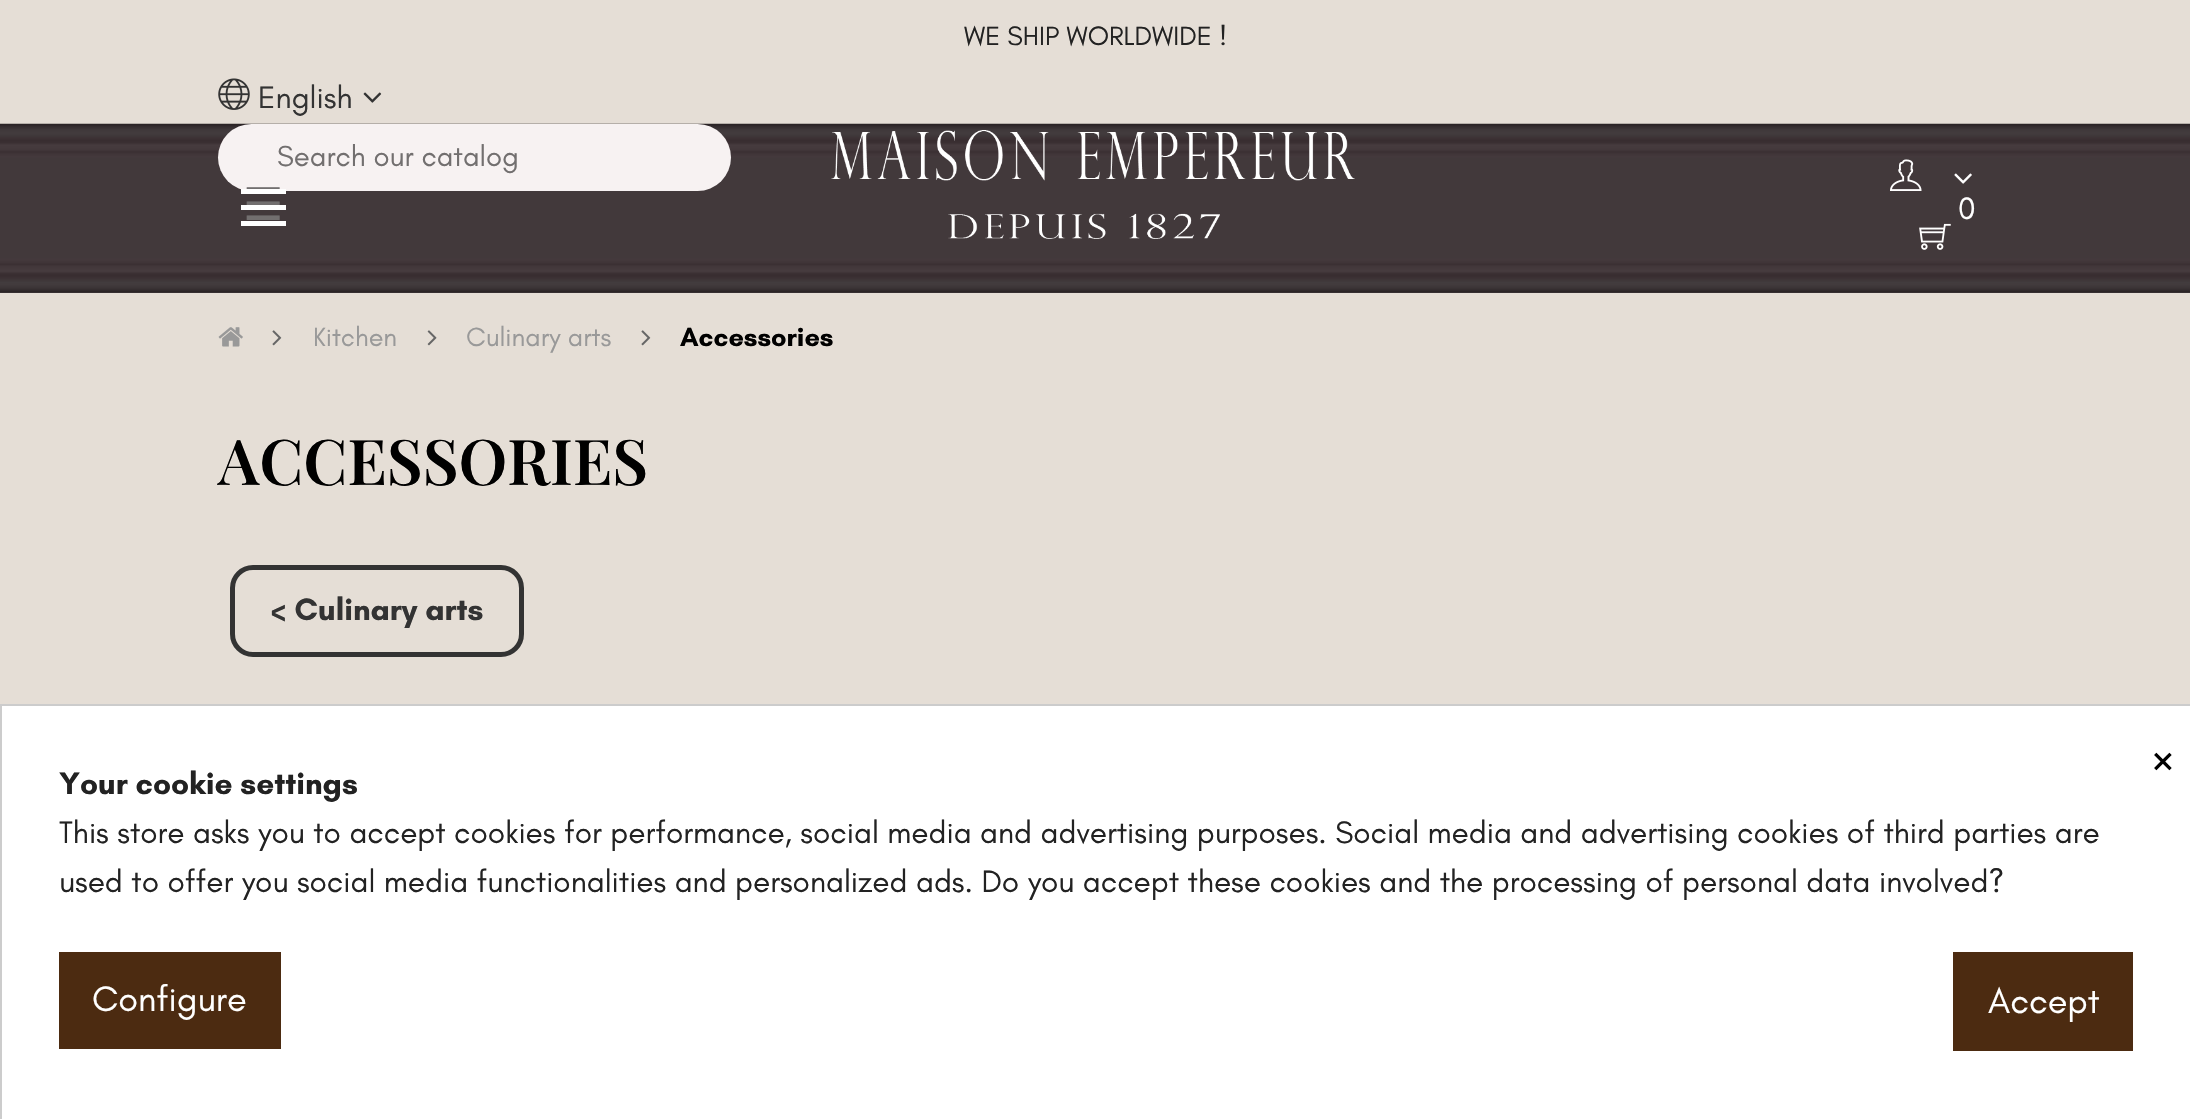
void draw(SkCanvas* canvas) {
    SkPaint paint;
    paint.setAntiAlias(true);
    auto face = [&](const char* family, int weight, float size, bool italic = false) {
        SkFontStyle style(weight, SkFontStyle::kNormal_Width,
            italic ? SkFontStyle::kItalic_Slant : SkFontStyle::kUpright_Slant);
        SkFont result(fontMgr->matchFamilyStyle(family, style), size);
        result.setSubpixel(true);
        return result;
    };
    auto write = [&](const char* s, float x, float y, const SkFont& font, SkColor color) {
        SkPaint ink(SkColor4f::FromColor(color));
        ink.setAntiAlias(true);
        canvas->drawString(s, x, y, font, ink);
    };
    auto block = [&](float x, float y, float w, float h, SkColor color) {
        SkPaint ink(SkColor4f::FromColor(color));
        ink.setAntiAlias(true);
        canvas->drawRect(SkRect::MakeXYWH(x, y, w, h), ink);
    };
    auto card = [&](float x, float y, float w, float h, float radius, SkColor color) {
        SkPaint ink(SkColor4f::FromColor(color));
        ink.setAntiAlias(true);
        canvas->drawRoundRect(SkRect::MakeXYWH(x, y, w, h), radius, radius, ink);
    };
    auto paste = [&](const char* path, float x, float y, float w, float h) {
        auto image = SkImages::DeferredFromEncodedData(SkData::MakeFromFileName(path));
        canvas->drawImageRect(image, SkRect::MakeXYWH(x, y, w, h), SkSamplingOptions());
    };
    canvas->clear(SkColorSetRGB(229, 222, 214));
    auto kFont1 = face("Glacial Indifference", 400, 27);
    write("WE SHIP WORLDWIDE !", 964, 45, kFont1, SkColorSetRGB(34, 34, 34));
    paste("pic1.png", 218, 78, 32, 32);
    auto kFont2 = face("Glacial Indifference", 400, 31.5f);
    write("English", 258, 108, kFont2, SkColorSetRGB(51, 51, 51));
    paste("pic2.png", 363, 92, 19, 11);
    block(0, 157, 2190, 136, SkColorSetRGB(66, 57, 59));
    paste("pic3.png", 0, 123, 2190, 170);
    card(218, 124, 513, 67, 33.5f, SkColorSetRGB(247, 242, 242));
    auto kFont3 = face("DejaVu Sans", 400, 45);
    write("☰", 243, 220, kFont3, SkColorSetRGB(114, 111, 111));
    block(241, 189, 45, 5, SK_ColorWHITE);
    block(241, 221, 45, 5, SK_ColorWHITE);
    block(241, 205, 45, 5, SK_ColorWHITE);
    auto kFont4 = face("Glacial Indifference", 400, 29.25f);
    write("Search our catalog", 277, 166, kFont4, SkColorSetRGB(114, 111, 111));
    paste("pic4.png", 831, 130, 524, 109);
    paste("pic5.png", 1890, 159, 32, 32);
    paste("pic6.png", 1954, 173, 18, 11);
    write("0", 1958, 219, kFont2, SK_ColorWHITE);
    paste("pic7.png", 1919, 223, 32, 27);
    paste("pic8.png", 218, 327, 25, 20);
    paste("pic9.png", 272, 330, 10, 16);
    write("Kitchen", 313, 346, kFont1, SkColorSetRGB(153, 153, 153));
    paste("pic10.png", 427, 330, 10, 16);
    write("Culinary arts", 466, 346, kFont1, SkColorSetRGB(153, 153, 153));
    paste("pic9.png", 641, 330, 10, 16);
    auto kFont5 = face("Glacial Indifference", 700, 27);
    write("Accessories", 680, 346, kFont5, SK_ColorBLACK);
    auto kFont6 = face("Playfair Display", 600, 63);
    write("ACCESSORIES", 218, 485, kFont6, SK_ColorBLACK);
    paint.setStyle(SkPaint::kStroke_Style);
    paint.setStrokeWidth(5);
    paint.setColor(SkColorSetRGB(51, 51, 51));
    canvas->drawRoundRect(SkRect::MakeXYWH(232.5f, 567.5f, 289, 87), 20.5f, 20.5f, paint);
    auto kFont7 = face("Glacial Indifference", 700, 31.5f);
    write("< Culinary arts", 270, 620, kFont7, SkColorSetRGB(51, 51, 51));
    paint.setStyle(SkPaint::kFill_Style);
    paint.setColor(SK_ColorWHITE);
    canvas->drawRect(SkRect::MakeXYWH(1, 705, 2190, 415), paint);
    paint.setStyle(SkPaint::kStroke_Style);
    paint.setStrokeWidth(2);
    paint.setColor(SkColorSetRGB(204, 204, 204));
    canvas->drawRect(SkRect::MakeXYWH(1, 705, 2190, 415), paint);
    auto kFont8 = face("Glacial Indifference", 400, 56);
    write("×", 2150, 774, kFont8, SK_ColorBLACK);
    write("Your cookie settings", 59, 794, kFont7, SkColorSetRGB(34, 34, 34));
    write("This store asks you to accept cookies for performance, social media and advertising purposes. Social media and advertising cookies of third parties are", 59, 843, kFont2, SkColorSetRGB(34, 34, 34));
    write("used to offer you social media functionalities and personalized ads. Do you accept these cookies and the processing of personal data involved?", 59, 892, kFont2, SkColorSetRGB(34, 34, 34));
    block(59, 952, 222, 97, SkColorSetRGB(76, 43, 17));
    auto kFont9 = face("Glacial Indifference", 400, 36);
    write("Configure", 92, 1011, kFont9, SK_ColorWHITE);
    block(1953, 952, 180, 99, SkColorSetRGB(76, 43, 17));
    write("Accept", 1988, 1013, kFont9, SK_ColorWHITE);
}
